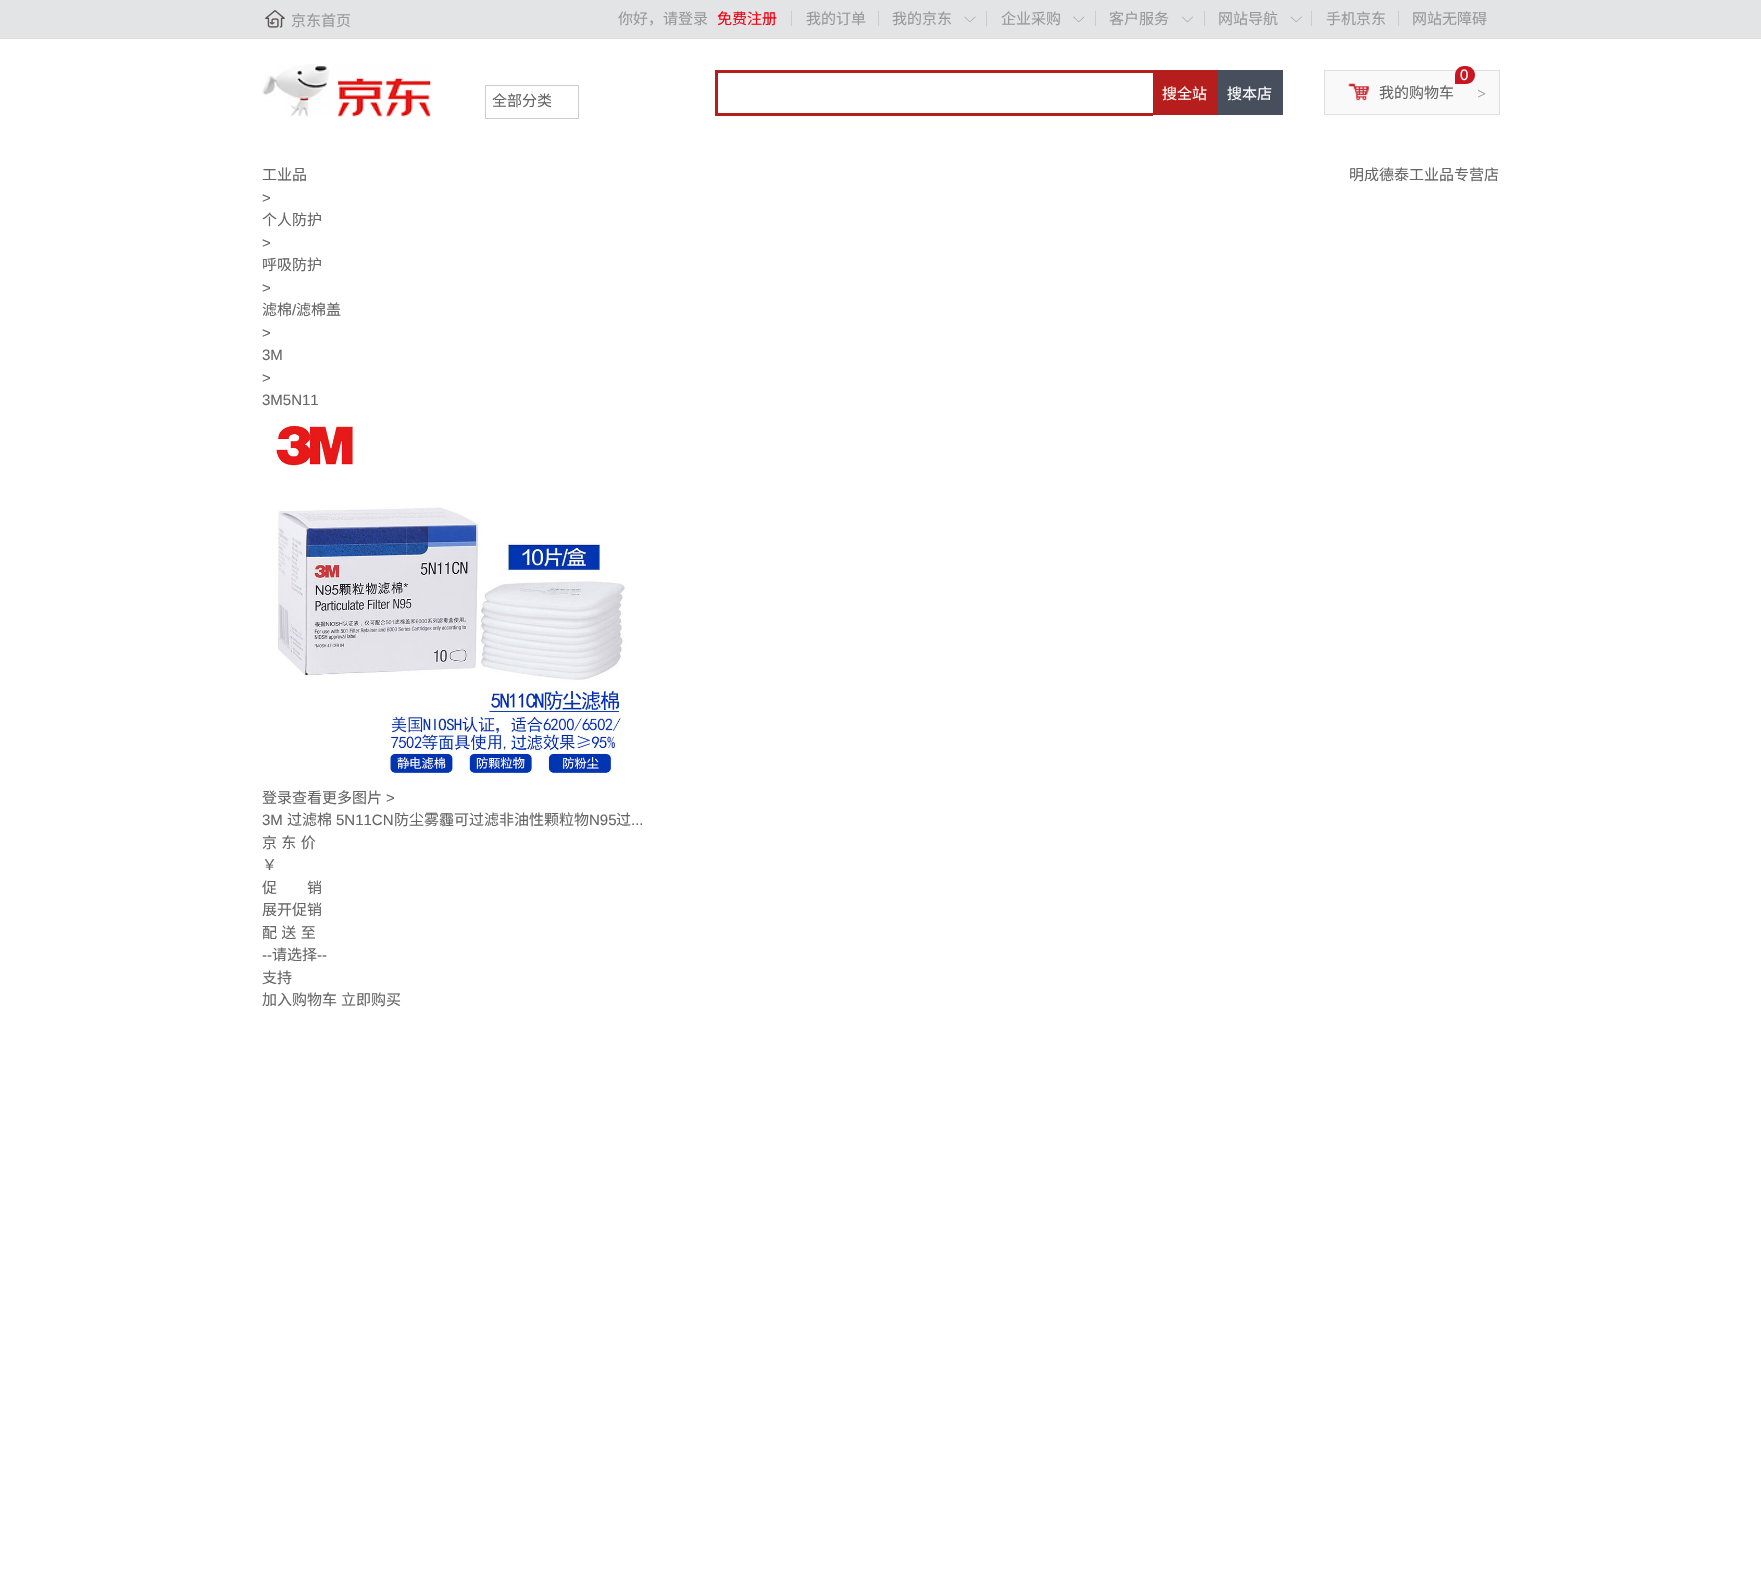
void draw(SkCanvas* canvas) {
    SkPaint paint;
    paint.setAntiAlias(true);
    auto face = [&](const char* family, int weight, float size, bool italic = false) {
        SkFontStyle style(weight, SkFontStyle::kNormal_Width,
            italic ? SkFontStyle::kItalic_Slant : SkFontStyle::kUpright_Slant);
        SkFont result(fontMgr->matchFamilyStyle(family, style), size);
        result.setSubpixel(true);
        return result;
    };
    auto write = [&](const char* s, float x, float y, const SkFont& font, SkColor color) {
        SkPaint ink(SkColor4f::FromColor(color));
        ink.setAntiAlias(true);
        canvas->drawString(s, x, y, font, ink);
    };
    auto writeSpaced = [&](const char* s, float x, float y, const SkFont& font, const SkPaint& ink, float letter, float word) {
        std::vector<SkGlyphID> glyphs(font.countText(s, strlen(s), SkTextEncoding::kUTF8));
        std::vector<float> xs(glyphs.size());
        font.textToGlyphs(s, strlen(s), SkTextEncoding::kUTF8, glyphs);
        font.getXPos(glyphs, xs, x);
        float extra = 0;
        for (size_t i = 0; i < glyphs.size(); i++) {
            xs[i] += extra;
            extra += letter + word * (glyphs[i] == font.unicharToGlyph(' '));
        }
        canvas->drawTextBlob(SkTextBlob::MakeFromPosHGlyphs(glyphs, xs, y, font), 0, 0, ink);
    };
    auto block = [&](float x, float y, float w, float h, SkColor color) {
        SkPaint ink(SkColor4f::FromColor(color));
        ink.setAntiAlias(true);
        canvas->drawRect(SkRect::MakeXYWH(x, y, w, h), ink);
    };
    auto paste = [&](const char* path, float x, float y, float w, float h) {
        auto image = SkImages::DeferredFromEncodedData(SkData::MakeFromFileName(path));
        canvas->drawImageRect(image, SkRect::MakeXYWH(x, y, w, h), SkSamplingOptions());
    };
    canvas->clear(SK_ColorWHITE);
    block(0, 0, 1761, 38, SkColorSetRGB(227, 228, 229));
    block(0, 38, 1761, 1, SkColorSetRGB(221, 221, 221));
    paste("pic1.png", 265, 10, 20, 18);
    auto kFont1 = face("Noto Sans CJK SC", 400, 15);
    write("京东首页", 291, 26, kFont1, SkColorSetRGB(153, 153, 153));
    write("你好，请登录", 618, 24, kFont1, SkColorSetRGB(153, 153, 153));
    write("免费注册", 717, 24, kFont1, SkColorSetRGB(243, 2, 19));
    block(791, 11, 1, 15, SkColorSetRGB(204, 204, 204));
    write("我的订单", 806, 24, kFont1, SkColorSetRGB(153, 153, 153));
    block(878, 11, 1, 15, SkColorSetRGB(204, 204, 204));
    write("我的京东", 892, 24, kFont1, SkColorSetRGB(153, 153, 153));
    paste("pic2.png", 964, 16, 12, 6);
    block(986, 11, 1, 15, SkColorSetRGB(204, 204, 204));
    write("企业采购", 1001, 24, kFont1, SkColorSetRGB(153, 153, 153));
    paste("pic3.png", 1073, 16, 12, 7);
    block(1095, 11, 1, 15, SkColorSetRGB(204, 204, 204));
    write("客户服务", 1109, 24, kFont1, SkColorSetRGB(153, 153, 153));
    paste("pic4.png", 1182, 16, 11, 7);
    block(1204, 11, 1, 15, SkColorSetRGB(204, 204, 204));
    write("网站导航", 1218, 24, kFont1, SkColorSetRGB(153, 153, 153));
    paste("pic5.png", 1290, 16, 12, 7);
    block(1311, 11, 1, 15, SkColorSetRGB(204, 204, 204));
    write("手机京东", 1326, 24, kFont1, SkColorSetRGB(153, 153, 153));
    block(1398, 11, 1, 15, SkColorSetRGB(204, 204, 204));
    write("网站无障碍", 1412, 24, kFont1, SkColorSetRGB(153, 153, 153));
    paste("pic6.png", 262, 64, 170, 53);
    paint.setStyle(SkPaint::kStroke_Style);
    paint.setStrokeWidth(1);
    paint.setColor(SkColorSetRGB(204, 204, 204));
    canvas->drawRect(SkRect::MakeXYWH(485.5f, 85.5f, 93, 33), paint);
    write("全部分类", 492, 106, kFont1, SkColorSetRGB(102, 102, 102));
    block(715, 70, 438, 3, SkColorSetRGB(182, 29, 29));
    block(715, 113, 438, 3, SkColorSetRGB(182, 29, 29));
    block(715, 70, 3, 45, SkColorSetRGB(182, 29, 29));
    block(1153, 70, 65, 45, SkColorSetRGB(182, 29, 29));
    write("搜全站", 1162, 99, kFont1, SK_ColorWHITE);
    block(1218, 70, 65, 45, SkColorSetRGB(71, 78, 92));
    write("搜本店", 1227, 99, kFont1, SK_ColorWHITE);
    paint.setStyle(SkPaint::kFill_Style);
    paint.setColor(SkColorSetRGB(249, 249, 249));
    canvas->drawRect(SkRect::MakeXYWH(1324.5f, 70.5f, 175, 44), paint);
    paint.setStyle(SkPaint::kStroke_Style);
    paint.setColor(SkColorSetRGB(223, 223, 223));
    canvas->drawRect(SkRect::MakeXYWH(1324.5f, 70.5f, 175, 44), paint);
    paint.setStyle(SkPaint::kFill_Style);
    paint.setColor(SkColorSetRGB(200, 22, 35));
    canvas->drawPath(SkPathBuilder().moveTo(1464, 66).lineTo(1466, 66).cubicTo(1471, 66, 1475, 70, 1475, 75).cubicTo(1475, 80, 1471, 84, 1466, 84).lineTo(1455, 84).lineTo(1455, 75).cubicTo(1455, 70, 1459, 66, 1464, 66).close().detach(), paint);
    auto kFont2 = face("Liberation Sans", 400, 15);
    write("0", 1460, 80, kFont2, SK_ColorWHITE);
    paste("pic7.png", 1348, 83, 21, 18);
    write("我的购物车", 1379, 98, kFont1, SkColorSetRGB(102, 102, 102));
    canvas->save();
    canvas->clipRect(SkRect::MakeXYWH(1478, 85, 8, 16));
    auto kFont3 = face("Liberation Serif", 400, 16);
    write(">", 1477, 99, kFont3, SkColorSetRGB(153, 153, 153));
    canvas->restore();
    write("工业品", 262, 180, kFont1, SkColorSetRGB(102, 102, 102));
    write(">", 262, 203, kFont2, SkColorSetRGB(102, 102, 102));
    write("个人防护", 262, 225, kFont1, SkColorSetRGB(102, 102, 102));
    write(">", 262, 248, kFont2, SkColorSetRGB(102, 102, 102));
    write("呼吸防护", 262, 270, kFont1, SkColorSetRGB(102, 102, 102));
    write(">", 262, 293, kFont2, SkColorSetRGB(102, 102, 102));
    write("滤棉", 262, 315, kFont1, SkColorSetRGB(102, 102, 102));
    write("/", 292, 315, kFont2, SkColorSetRGB(102, 102, 102));
    write("滤棉盖", 296, 315, kFont1, SkColorSetRGB(102, 102, 102));
    write(">", 262, 338, kFont2, SkColorSetRGB(102, 102, 102));
    write("3M", 262, 360, kFont2, SkColorSetRGB(102, 102, 102));
    write(">", 262, 383, kFont2, SkColorSetRGB(102, 102, 102));
    write("3M5N11", 262, 405, kFont2, SkColorSetRGB(102, 102, 102));
    write("明成德泰工业品专营店", 1349, 180, kFont1, SkColorSetRGB(102, 102, 102));
    paste("pic8.png", 275, 424, 351, 350);
    write("登录查看更多图片", 262, 803, kFont1, SkColorSetRGB(102, 102, 102));
    write(">", 386, 803, kFont2, SkColorSetRGB(102, 102, 102));
    write("3M", 262, 825, kFont2, SkColorSetRGB(102, 102, 102));
    write("过滤棉", 287, 825, kFont1, SkColorSetRGB(102, 102, 102));
    write("5N11CN", 336, 825, kFont2, SkColorSetRGB(102, 102, 102));
    write("防尘雾霾可过滤非油性颗粒物", 394, 825, kFont1, SkColorSetRGB(102, 102, 102));
    write("N95", 589, 825, kFont2, SkColorSetRGB(102, 102, 102));
    write("过", 616, 825, kFont1, SkColorSetRGB(102, 102, 102));
    write("...", 631, 825, kFont2, SkColorSetRGB(102, 102, 102));
    paint.setColor(SkColorSetRGB(102, 102, 102));
    writeSpaced("京 东 价", 262, 848, kFont1, paint, 0, 1);
    write("￥", 262, 870, kFont1, SkColorSetRGB(102, 102, 102));
    write("促　　销", 262, 893, kFont1, SkColorSetRGB(102, 102, 102));
    write("展开促销", 262, 915, kFont1, SkColorSetRGB(102, 102, 102));
    writeSpaced("配 送 至", 262, 938, kFont1, paint, 0, 1);
    write("--", 262, 960, kFont2, SkColorSetRGB(102, 102, 102));
    write("请选择", 272, 960, kFont1, SkColorSetRGB(102, 102, 102));
    write("--", 317, 960, kFont2, SkColorSetRGB(102, 102, 102));
    write("支持", 262, 983, kFont1, SkColorSetRGB(102, 102, 102));
    write("加入购物车", 262, 1005, kFont1, SkColorSetRGB(102, 102, 102));
    write("立即购买", 341, 1005, kFont1, SkColorSetRGB(102, 102, 102));
}
